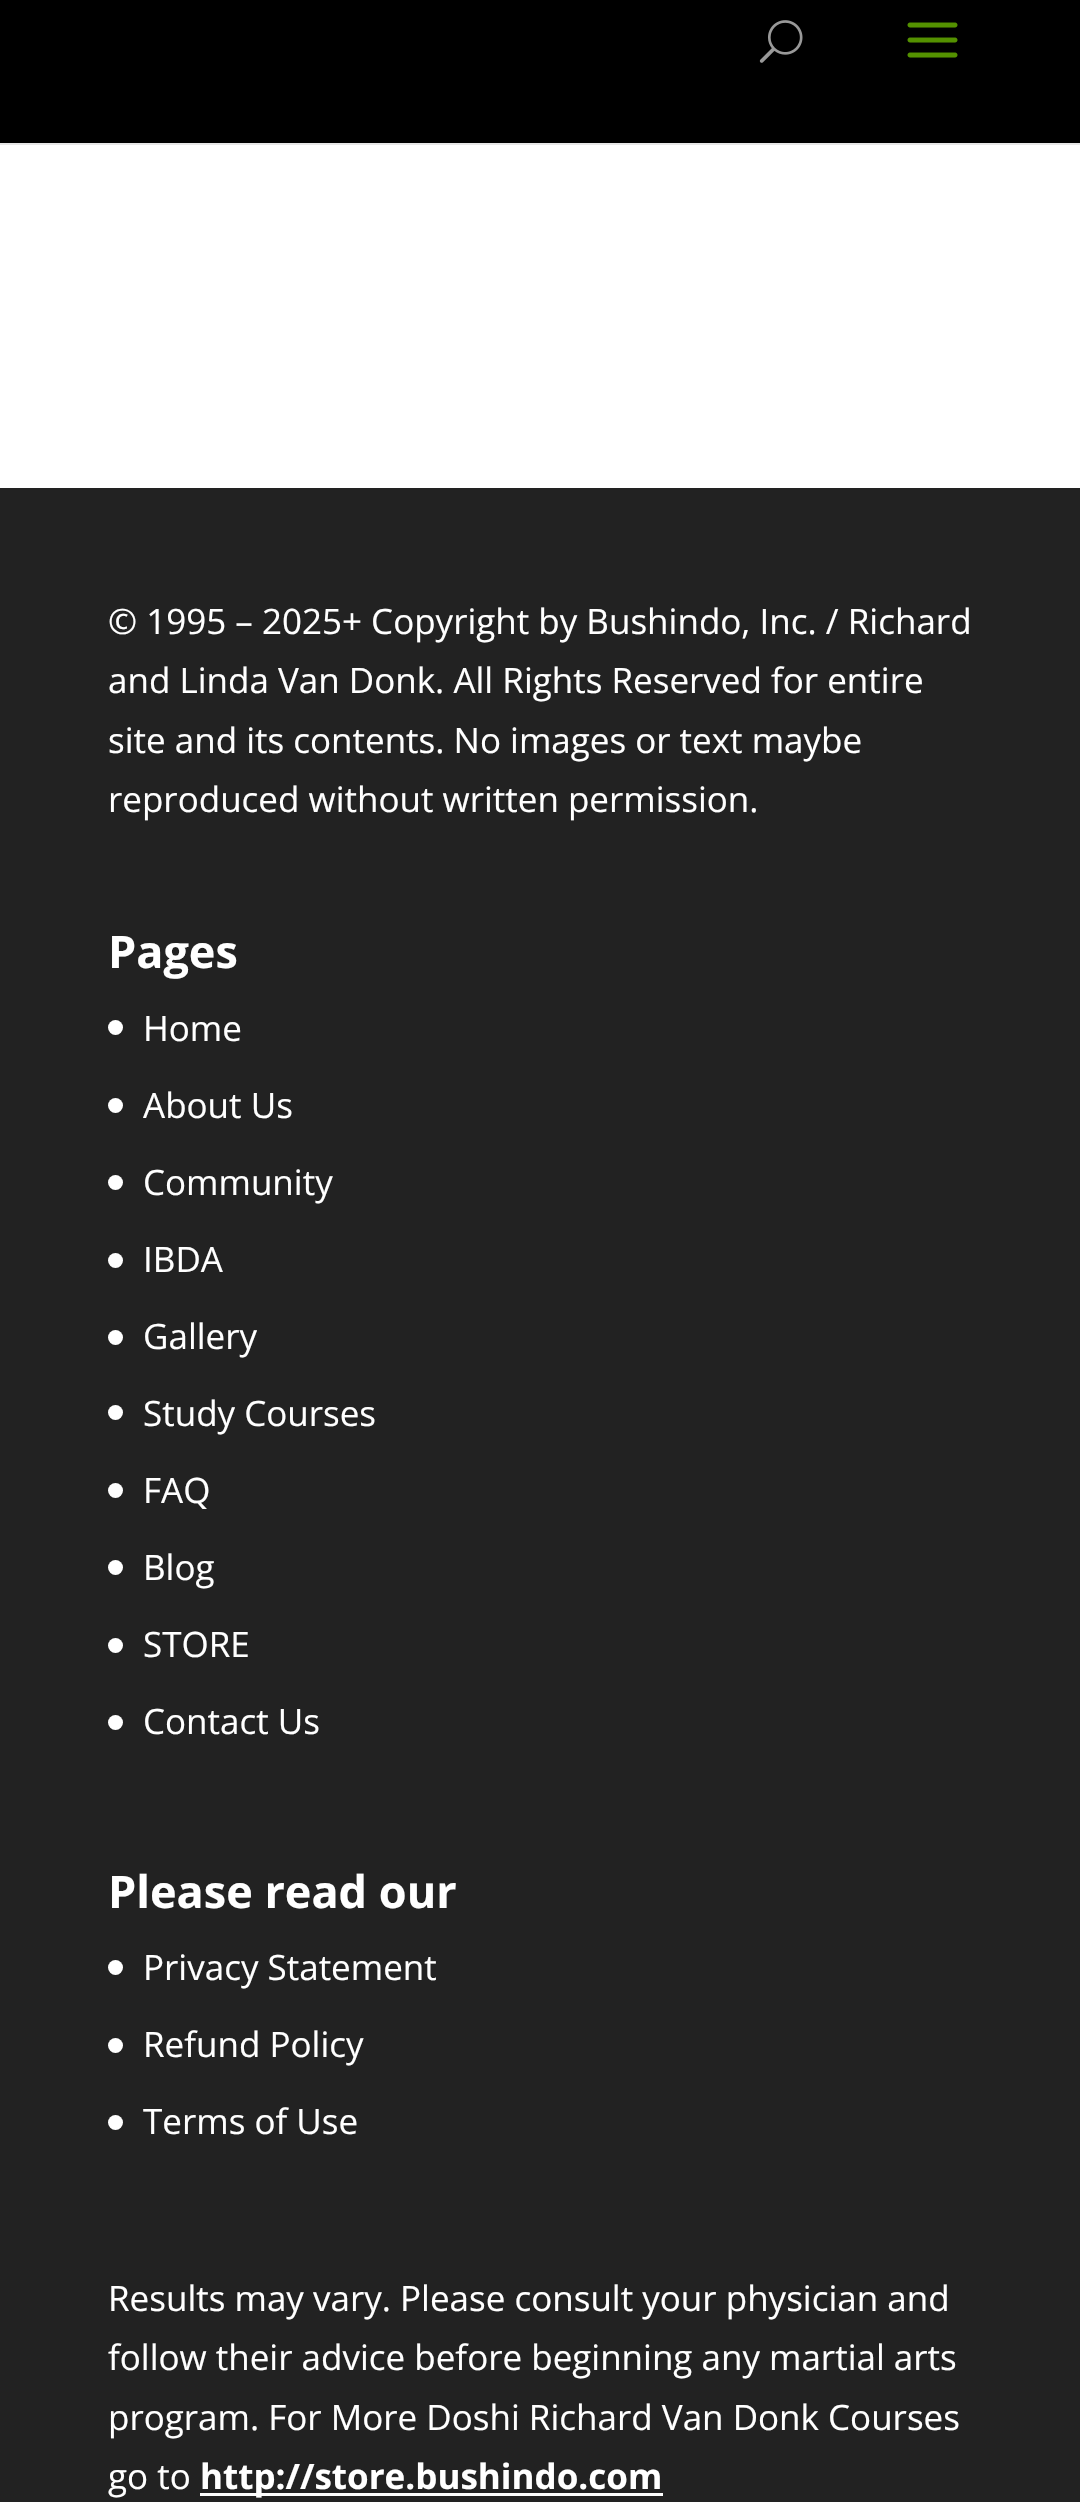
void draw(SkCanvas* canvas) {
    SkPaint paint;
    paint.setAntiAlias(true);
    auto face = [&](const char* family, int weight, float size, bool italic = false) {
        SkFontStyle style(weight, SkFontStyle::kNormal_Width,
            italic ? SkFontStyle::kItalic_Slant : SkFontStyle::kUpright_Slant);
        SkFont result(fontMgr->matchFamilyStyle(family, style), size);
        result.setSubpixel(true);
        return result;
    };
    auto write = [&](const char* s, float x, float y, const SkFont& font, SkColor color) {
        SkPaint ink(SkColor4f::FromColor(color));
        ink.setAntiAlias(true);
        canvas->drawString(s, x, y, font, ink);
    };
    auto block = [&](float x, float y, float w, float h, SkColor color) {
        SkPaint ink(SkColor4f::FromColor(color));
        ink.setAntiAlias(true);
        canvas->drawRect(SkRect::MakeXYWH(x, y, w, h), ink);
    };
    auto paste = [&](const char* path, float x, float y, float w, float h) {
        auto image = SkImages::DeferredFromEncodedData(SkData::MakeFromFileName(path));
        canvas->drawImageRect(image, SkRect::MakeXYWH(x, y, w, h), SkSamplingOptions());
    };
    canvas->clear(SK_ColorWHITE);
    block(0, 143, 1080, 2, SkColorSetRGB(230, 230, 230));
    block(0, 0, 1080, 143, SK_ColorBLACK);
    paste("pic1.png", 759, 20, 44, 43);
    paste("pic2.png", 907, 22, 51, 36);
    block(0, 488, 1080, 2014, SkColorSetRGB(34, 34, 34));
    auto kFont1 = face("Open Sans", 400, 35);
    write("© 1995 – 2025+ Copyright by Bushindo, Inc. / Richard", 108, 634, kFont1, SK_ColorWHITE);
    write("and Linda Van Donk. All Rights Reserved for entire", 108, 693, kFont1, SK_ColorWHITE);
    write("site and its contents. No images or text maybe", 108, 753, kFont1, SK_ColorWHITE);
    write("reproduced without written permission.", 108, 812, kFont1, SK_ColorWHITE);
    auto kFont2 = face("Open Sans", 700, 45);
    write("Pages", 108, 968, kFont2, SK_ColorWHITE);
    paint.setColor(SK_ColorWHITE);
    canvas->drawCircle(115.5f, 1027.5f, 7.5f, paint);
    write("Home", 143, 1041, kFont1, SK_ColorWHITE);
    canvas->drawCircle(115.5f, 1105.5f, 7.5f, paint);
    write("About Us", 143, 1118, kFont1, SK_ColorWHITE);
    canvas->drawCircle(115.5f, 1182.5f, 7.5f, paint);
    write("Community", 143, 1195, kFont1, SK_ColorWHITE);
    canvas->drawCircle(115.5f, 1260.5f, 7.5f, paint);
    write("IBDA", 143, 1272, kFont1, SK_ColorWHITE);
    canvas->drawCircle(115.5f, 1337.5f, 7.5f, paint);
    write("Gallery", 143, 1349, kFont1, SK_ColorWHITE);
    canvas->drawCircle(115.5f, 1412.5f, 7.5f, paint);
    write("Study Courses", 143, 1426, kFont1, SK_ColorWHITE);
    canvas->drawCircle(115.5f, 1490.5f, 7.5f, paint);
    write("FAQ", 143, 1503, kFont1, SK_ColorWHITE);
    canvas->drawCircle(115.5f, 1567.5f, 7.5f, paint);
    write("Blog", 143, 1580, kFont1, SK_ColorWHITE);
    canvas->drawCircle(115.5f, 1645.5f, 7.5f, paint);
    write("STORE", 143, 1657, kFont1, SK_ColorWHITE);
    canvas->drawCircle(115.5f, 1722.5f, 7.5f, paint);
    write("Contact Us", 143, 1734, kFont1, SK_ColorWHITE);
    write("Please read our", 108, 1908, kFont2, SK_ColorWHITE);
    canvas->drawCircle(115.5f, 1967.5f, 7.5f, paint);
    write("Privacy Statement", 143, 1980, kFont1, SK_ColorWHITE);
    canvas->drawCircle(115.5f, 2045.5f, 7.5f, paint);
    write("Refund Policy", 143, 2057, kFont1, SK_ColorWHITE);
    canvas->drawCircle(115.5f, 2122.5f, 7.5f, paint);
    write("Terms of Use", 143, 2134, kFont1, SK_ColorWHITE);
    write("Results may vary. Please consult your physician and", 108, 2311, kFont1, SK_ColorWHITE);
    write("follow their advice before beginning any martial arts", 108, 2370, kFont1, SK_ColorWHITE);
    write("program. For More Doshi Richard Van Donk Courses", 108, 2430, kFont1, SK_ColorWHITE);
    write("go to", 108, 2489, kFont1, SK_ColorWHITE);
    block(200, 2493, 463, 3, SK_ColorWHITE);
    auto kFont3 = face("Open Sans", 700, 35);
    write("http://store.bushindo.com", 200, 2489, kFont3, SK_ColorWHITE);
}
